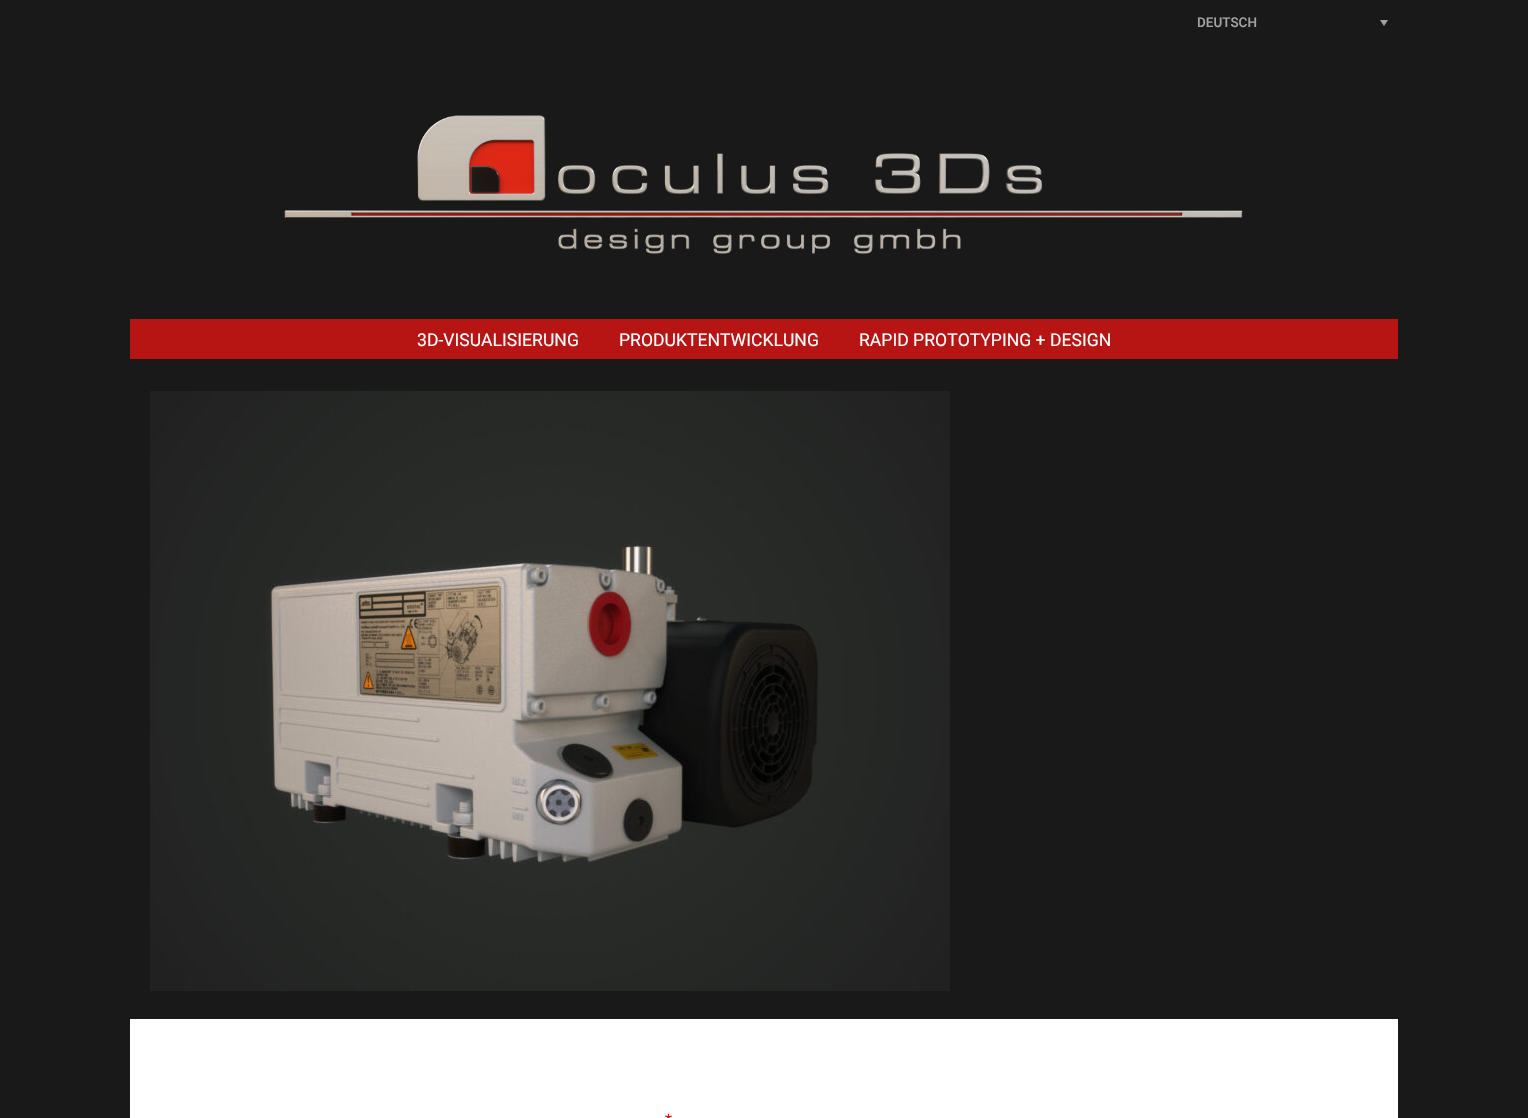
void draw(SkCanvas* canvas) {
    SkPaint paint;
    paint.setAntiAlias(true);
    auto face = [&](const char* family, int weight, float size, bool italic = false) {
        SkFontStyle style(weight, SkFontStyle::kNormal_Width,
            italic ? SkFontStyle::kItalic_Slant : SkFontStyle::kUpright_Slant);
        SkFont result(fontMgr->matchFamilyStyle(family, style), size);
        result.setSubpixel(true);
        return result;
    };
    auto write = [&](const char* s, float x, float y, const SkFont& font, SkColor color) {
        SkPaint ink(SkColor4f::FromColor(color));
        ink.setAntiAlias(true);
        canvas->drawString(s, x, y, font, ink);
    };
    auto block = [&](float x, float y, float w, float h, SkColor color) {
        SkPaint ink(SkColor4f::FromColor(color));
        ink.setAntiAlias(true);
        canvas->drawRect(SkRect::MakeXYWH(x, y, w, h), ink);
    };
    auto paste = [&](const char* path, float x, float y, float w, float h) {
        auto image = SkImages::DeferredFromEncodedData(SkData::MakeFromFileName(path));
        canvas->drawImageRect(image, SkRect::MakeXYWH(x, y, w, h), SkSamplingOptions());
    };
    canvas->clear(SkColorSetRGB(25, 25, 25));
    auto kFont1 = face("Roboto", 500, 13.5f);
    write("DEUTSCH", 1197, 27, kFont1, SkColorSetRGB(163, 163, 163));
    paint.setColor(SkColorSetRGB(163, 163, 163));
    canvas->drawPath(SkPathBuilder().moveTo(1380, 20).lineTo(1388, 20).lineTo(1384, 26).close().detach(), paint);
    paste("pic1.png", 284, 115, 959, 139);
    block(130, 319, 1268, 40, SkColorSetRGB(183, 20, 20));
    auto kFont2 = face("Roboto", 400, 17.6f);
    write("3D-VISUALISIERUNG", 417, 346, kFont2, SK_ColorWHITE);
    write("PRODUKTENTWICKLUNG", 619, 346, kFont2, SK_ColorWHITE);
    write("RAPID PROTOTYPING + DESIGN", 859, 346, kFont2, SK_ColorWHITE);
    paste("pic2.png", 150, 391, 800, 600);
    block(130, 1019, 1268, 99, SK_ColorWHITE);
    auto kFont3 = face("Roboto", 400, 16);
    write("*", 665, 1125, kFont3, SkColorSetRGB(255, 0, 0));
}
